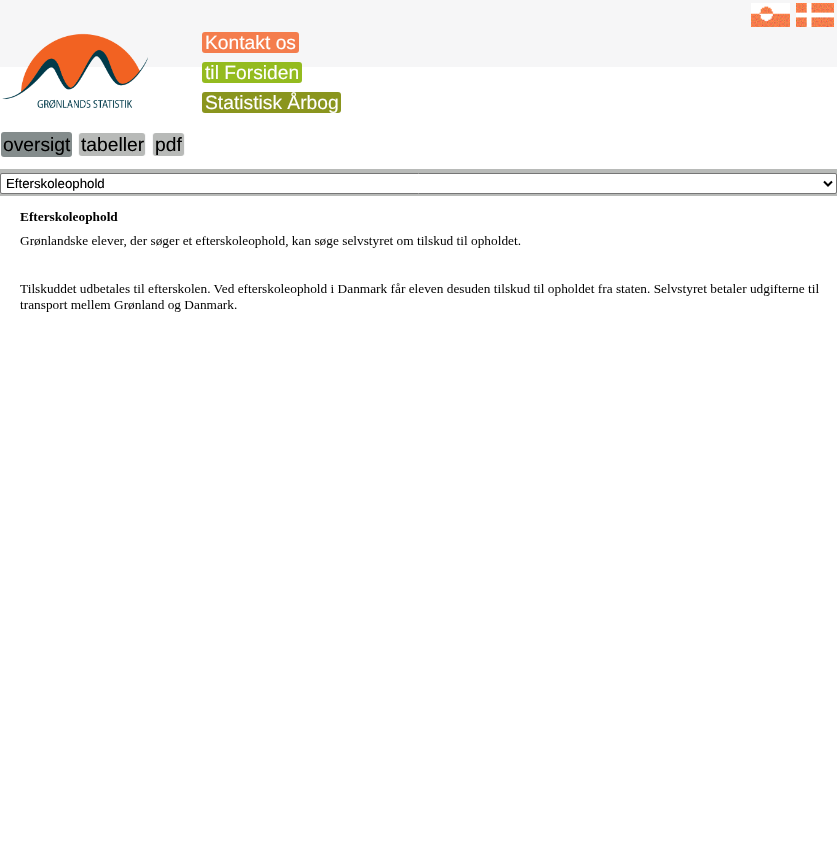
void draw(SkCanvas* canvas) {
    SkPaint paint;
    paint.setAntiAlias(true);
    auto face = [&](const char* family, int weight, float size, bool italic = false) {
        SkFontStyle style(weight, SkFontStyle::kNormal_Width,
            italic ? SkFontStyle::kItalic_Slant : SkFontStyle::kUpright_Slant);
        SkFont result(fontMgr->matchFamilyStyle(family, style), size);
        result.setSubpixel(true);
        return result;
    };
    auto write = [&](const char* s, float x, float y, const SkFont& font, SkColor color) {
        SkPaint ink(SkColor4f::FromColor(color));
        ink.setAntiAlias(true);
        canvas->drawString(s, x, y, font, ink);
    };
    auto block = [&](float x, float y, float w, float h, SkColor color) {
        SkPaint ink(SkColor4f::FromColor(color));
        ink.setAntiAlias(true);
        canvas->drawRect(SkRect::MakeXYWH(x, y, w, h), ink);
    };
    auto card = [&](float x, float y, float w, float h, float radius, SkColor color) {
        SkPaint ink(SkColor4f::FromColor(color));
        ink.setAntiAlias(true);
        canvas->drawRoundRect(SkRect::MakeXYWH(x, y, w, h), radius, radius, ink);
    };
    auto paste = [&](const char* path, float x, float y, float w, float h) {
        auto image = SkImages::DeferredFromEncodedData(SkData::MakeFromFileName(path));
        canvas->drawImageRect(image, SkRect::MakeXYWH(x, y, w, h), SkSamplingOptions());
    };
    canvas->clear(SK_ColorWHITE);
    block(0, 0, 837, 67, SkColorSetRGB(246, 246, 247));
    paste("pic1.png", 751, 3, 39, 24);
    paste("pic2.png", 796, 3, 38, 24);
    paste("pic3.png", 2, 33, 146, 76);
    card(202, 32, 97, 21, 3, SkColorSetRGB(244, 125, 77));
    auto kFont1 = face("Liberation Sans", 400, 19.25f);
    write("Kontakt os", 205, 49, kFont1, SK_ColorWHITE);
    card(202, 62, 100, 21, 3, SkColorSetRGB(148, 187, 31));
    write("til Forsiden", 205, 79, kFont1, SK_ColorWHITE);
    card(202, 92, 139, 21, 3, SkColorSetRGB(138, 149, 30));
    write("Statistisk Årbog", 205, 109, kFont1, SK_ColorWHITE);
    card(1, 132, 71, 25, 3, SkColorSetRGB(132, 140, 140));
    write("oversigt", 3, 151, kFont1, SK_ColorBLACK);
    card(78, 133, 68, 23, 3, SkColorSetRGB(246, 246, 247));
    card(79, 133, 66, 23, 3, SkColorSetRGB(184, 186, 184));
    write("tabeller", 81, 151, kFont1, SK_ColorBLACK);
    card(152, 133, 33, 23, 3, SkColorSetRGB(246, 246, 247));
    card(153, 133, 31, 23, 3, SkColorSetRGB(184, 186, 184));
    write("pdf", 155, 151, kFont1, SK_ColorBLACK);
    block(0, 169, 837, 27, SkColorSetRGB(184, 186, 184));
    paint.setColor(SK_ColorWHITE);
    canvas->drawRoundRect(SkRect::MakeXYWH(0.5f, 173.5f, 836, 20), 1.5f, 1.5f, paint);
    paint.setStyle(SkPaint::kStroke_Style);
    paint.setStrokeWidth(1);
    paint.setColor(SkColorSetRGB(118, 118, 118));
    canvas->drawRoundRect(SkRect::MakeXYWH(0.5f, 173.5f, 836, 20), 1.5f, 1.5f, paint);
    paint.setStrokeWidth(2);
    paint.setColor(SK_ColorBLACK);
    canvas->drawPath(SkPathBuilder().moveTo(824, 181.5f).lineTo(828, 185.5f).lineTo(832, 181.5f).detach(), paint);
    auto kFont2 = face("Liberation Sans", 400, 13.25f);
    write("Efterskoleophold", 6, 188, kFont2, SK_ColorBLACK);
    paste("pic4.png", 20, 212, 799, 100);
}
